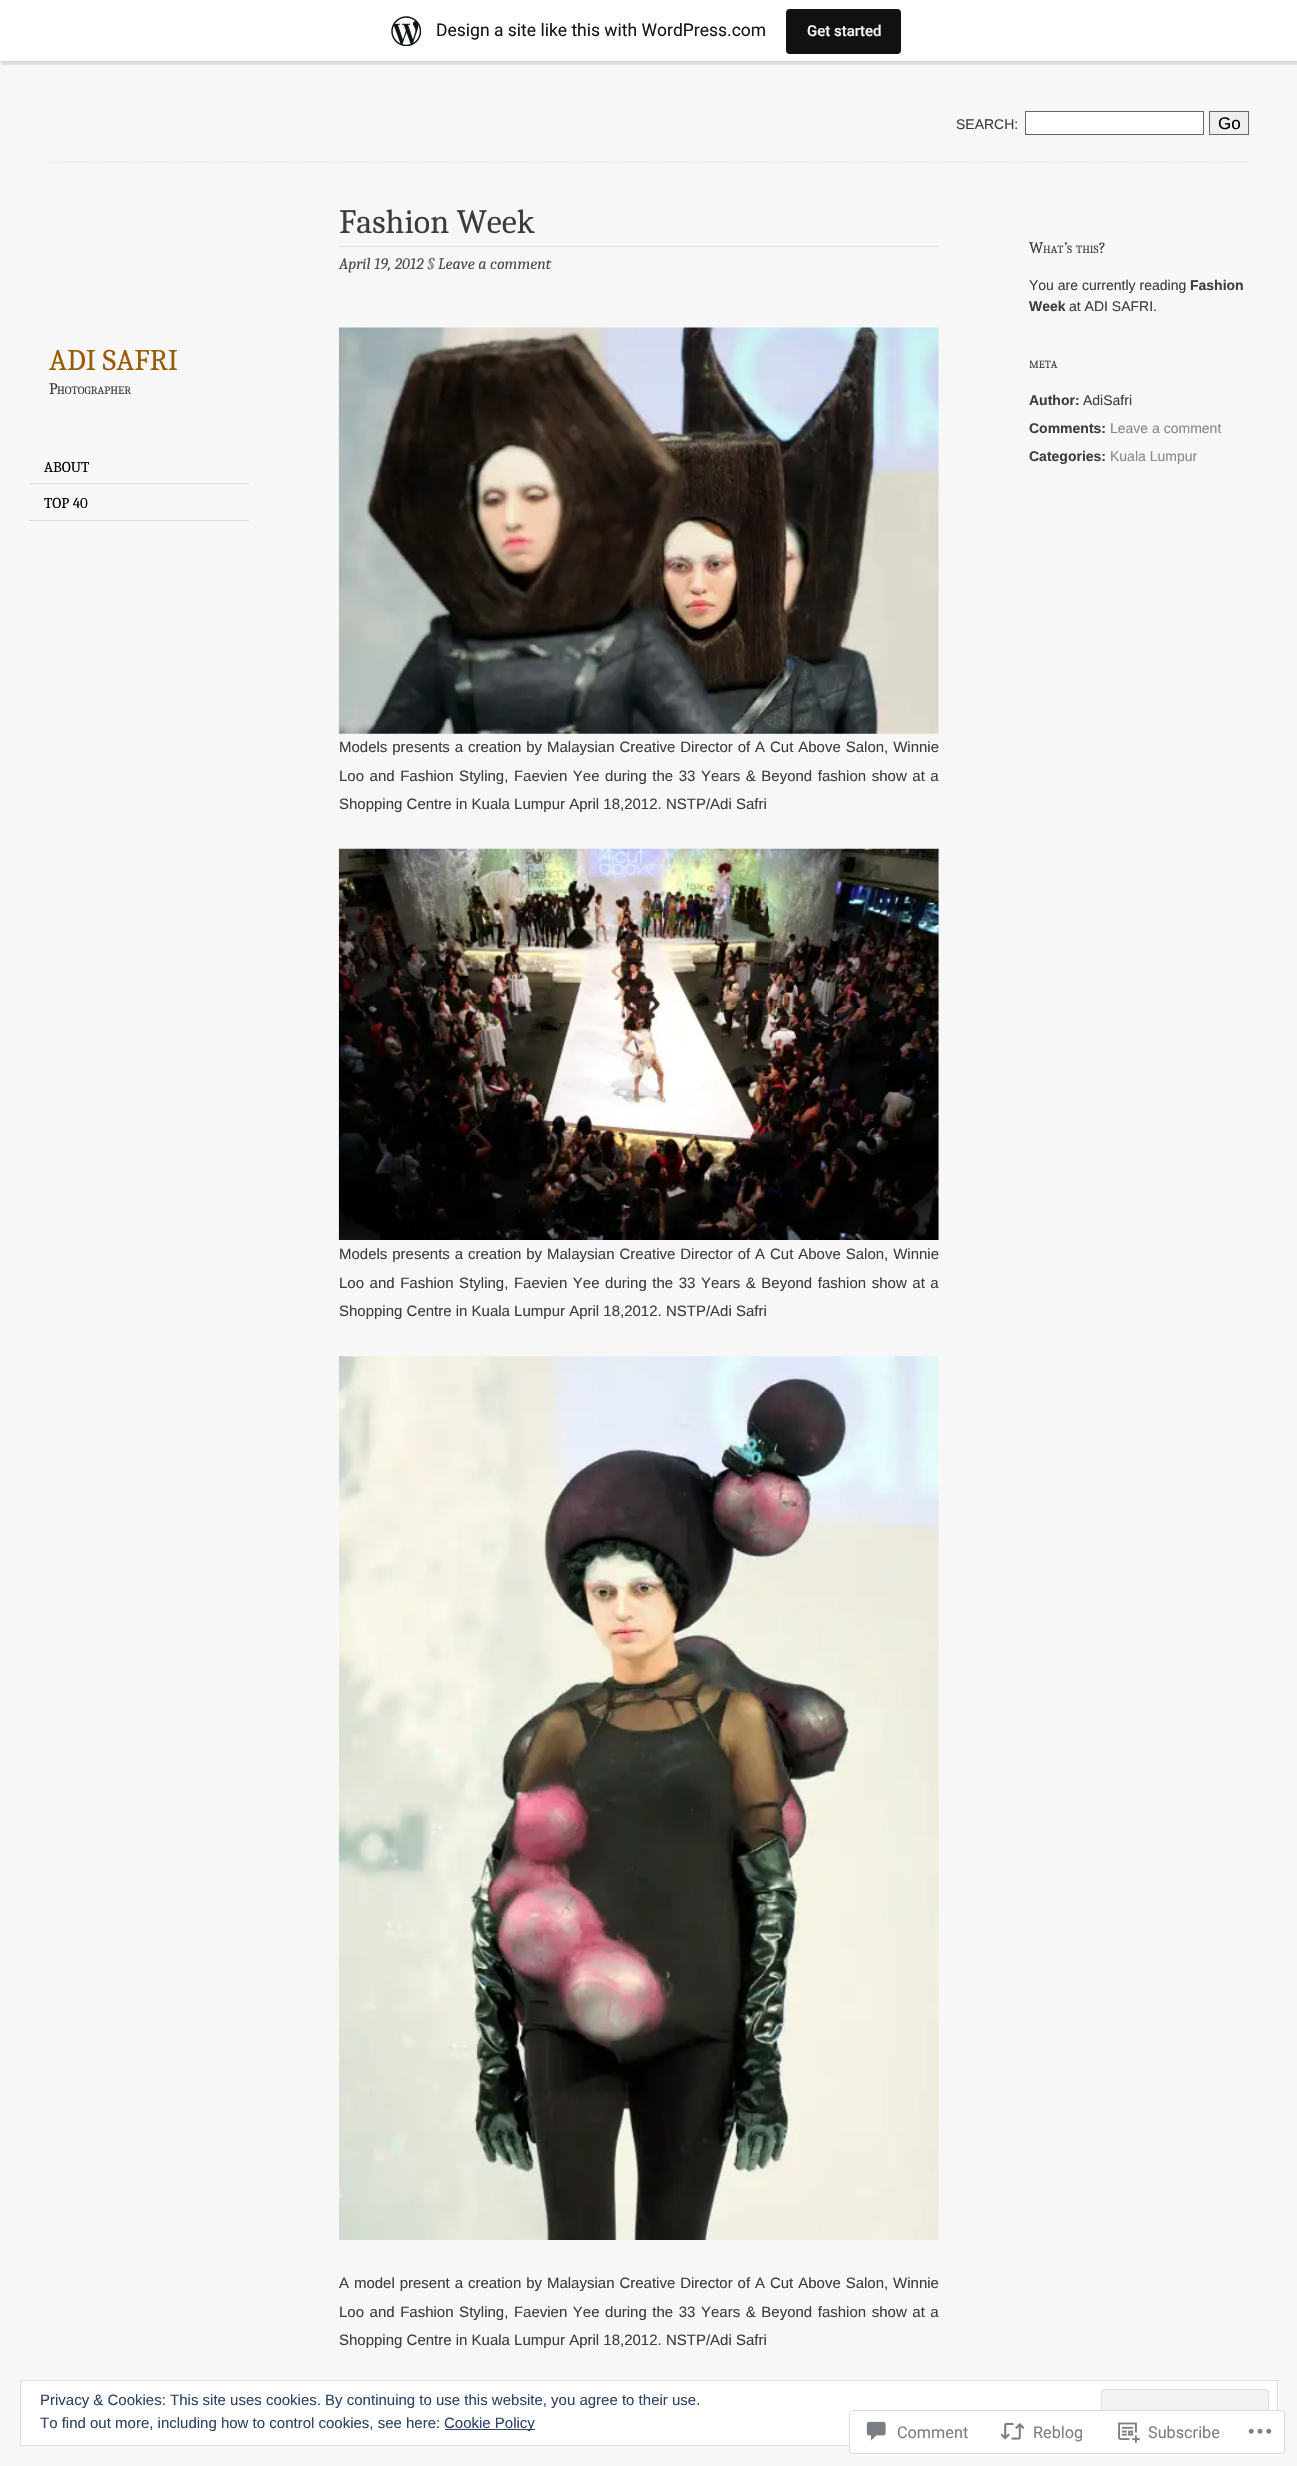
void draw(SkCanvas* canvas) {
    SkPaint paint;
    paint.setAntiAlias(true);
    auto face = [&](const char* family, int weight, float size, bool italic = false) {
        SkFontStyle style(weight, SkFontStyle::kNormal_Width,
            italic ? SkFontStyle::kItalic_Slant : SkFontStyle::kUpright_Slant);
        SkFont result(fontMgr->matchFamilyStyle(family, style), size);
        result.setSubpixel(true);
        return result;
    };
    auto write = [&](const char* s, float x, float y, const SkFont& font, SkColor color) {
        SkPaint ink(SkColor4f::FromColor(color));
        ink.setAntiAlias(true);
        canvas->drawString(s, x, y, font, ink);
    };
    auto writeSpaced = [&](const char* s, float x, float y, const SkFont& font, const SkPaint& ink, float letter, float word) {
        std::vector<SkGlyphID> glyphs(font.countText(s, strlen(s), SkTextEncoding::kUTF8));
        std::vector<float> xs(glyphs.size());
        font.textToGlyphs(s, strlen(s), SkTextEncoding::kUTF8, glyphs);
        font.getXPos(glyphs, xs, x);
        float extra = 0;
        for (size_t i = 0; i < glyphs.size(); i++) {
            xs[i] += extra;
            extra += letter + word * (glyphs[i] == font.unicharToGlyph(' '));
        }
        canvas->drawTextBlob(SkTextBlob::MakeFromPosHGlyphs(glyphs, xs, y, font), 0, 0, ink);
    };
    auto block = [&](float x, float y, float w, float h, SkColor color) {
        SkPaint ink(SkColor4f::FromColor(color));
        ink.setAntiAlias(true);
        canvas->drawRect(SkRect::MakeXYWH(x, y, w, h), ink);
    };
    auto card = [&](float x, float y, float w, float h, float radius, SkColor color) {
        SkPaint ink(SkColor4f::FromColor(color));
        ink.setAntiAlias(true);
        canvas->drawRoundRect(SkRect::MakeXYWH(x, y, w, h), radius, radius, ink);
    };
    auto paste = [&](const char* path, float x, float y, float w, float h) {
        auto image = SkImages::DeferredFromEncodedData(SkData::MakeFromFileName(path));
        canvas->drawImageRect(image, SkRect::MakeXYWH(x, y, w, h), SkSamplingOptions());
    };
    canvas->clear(SkColorSetRGB(247, 247, 247));
    paint.setColor(SkColorSetARGB(13, 0, 0, 0));
    paint.setMaskFilter(SkMaskFilter::MakeBlur(kNormal_SkBlurStyle, 1));
    canvas->drawRect(SkRect::MakeXYWH(0, 1, 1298, 62), paint);
    paint.setMaskFilter(nullptr);
    paint.setColor(SkColorSetARGB(20, 0, 0, 0));
    canvas->drawPath(SkPathBuilder().moveTo(1, 61).lineTo(1, 65).lineTo(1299, 65).lineTo(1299, 4).lineTo(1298, 4).lineTo(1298, 61).close().detach(), paint);
    block(0, 0, 1297, 61, SK_ColorWHITE);
    paste("pic1.png", 391, 16, 30, 30);
    auto kFont1 = face("Roboto", 400, 17.5f);
    write("Design a site like this with WordPress.com", 436, 36, kFont1, SkColorSetRGB(23, 23, 23));
    card(786, 9, 115, 45, 4, SkColorSetRGB(17, 17, 17));
    auto kFont2 = face("Roboto", 500, 15);
    write("Get started", 807, 36, kFont2, SkColorSetRGB(246, 247, 247));
    paint.setStyle(SkPaint::kStroke_Style);
    paint.setStrokeWidth(1.2f);
    paint.setColor(SkColorSetRGB(221, 221, 221));
    paint.setPathEffect(SkDashPathEffect::Make({{1.25f, 1.25f}}, 0));
    canvas->drawPath(SkPathBuilder().moveTo(49, 162).lineTo(1249, 162).detach(), paint);
    paint.setPathEffect(nullptr);
    auto kFont3 = face("Liberation Sans", 400, 14);
    write("SEARCH:", 956, 129, kFont3, SkColorSetRGB(61, 61, 61));
    paint.setStyle(SkPaint::kFill_Style);
    paint.setColor(SK_ColorWHITE);
    canvas->drawRect(SkRect::MakeXYWH(1025.5f, 111.5f, 178, 23), paint);
    paint.setStyle(SkPaint::kStroke_Style);
    paint.setStrokeWidth(1);
    paint.setColor(SkColorSetRGB(102, 102, 102));
    canvas->drawRect(SkRect::MakeXYWH(1025.5f, 111.5f, 178, 23), paint);
    paint.setStyle(SkPaint::kFill_Style);
    paint.setColor(SkColorSetRGB(239, 239, 239));
    canvas->drawRect(SkRect::MakeXYWH(1209.5f, 111.5f, 39, 23), paint);
    paint.setStyle(SkPaint::kStroke_Style);
    paint.setColor(SkColorSetRGB(102, 102, 102));
    canvas->drawRect(SkRect::MakeXYWH(1209.5f, 111.5f, 39, 23), paint);
    auto kFont4 = face("Liberation Sans", 400, 17);
    write("Go", 1218, 129, kFont4, SK_ColorBLACK);
    auto kFont5 = face("Caladea", 400, 30);
    write("ADI SAFRI", 49, 370, kFont5, SkColorSetRGB(153, 91, 0));
    auto kFont6 = face("Caladea", 400, 16);
    write("P", 49, 394, kFont6, SkColorSetRGB(61, 61, 61));
    auto kFont7 = face("Caladea", 400, 11.25f);
    write("HOTOGRAPHER", 57, 394, kFont7, SkColorSetRGB(61, 61, 61));
    block(29, 483, 220, 1, SkColorSetRGB(221, 221, 221));
    auto kFont8 = face("Caladea", 400, 15);
    write("ABOUT", 44, 472, kFont8, SK_ColorBLACK);
    block(29, 520, 220, 1, SkColorSetRGB(221, 221, 221));
    write("TOP 40", 44, 508, kFont8, SK_ColorBLACK);
    block(339, 246, 600, 1, SkColorSetRGB(221, 221, 221));
    auto kFont9 = face("Caladea", 400, 34);
    write("Fashion Week", 339, 233, kFont9, SkColorSetRGB(61, 61, 61));
    auto kFont10 = face("Caladea", 400, 16, true);
    write("April 19, 2012", 339, 269, kFont10, SkColorSetRGB(76, 76, 76));
    write("§", 427, 269, kFont10, SkColorSetRGB(102, 102, 102));
    write("Leave a comment", 438, 269, kFont10, SkColorSetRGB(76, 76, 76));
    paste("pic2.png", 338, 327, 601, 407);
    auto kFont11 = face("Liberation Sans", 400, 15);
    paint.setStyle(SkPaint::kFill_Style);
    paint.setColor(SkColorSetRGB(61, 61, 61));
    writeSpaced("Models presents a creation by Malaysian Creative Director of A Cut Above Salon, Winnie", 339, 752, kFont11, paint, 0, 0.75f);
    writeSpaced("Loo and Fashion Styling, Faevien Yee during the 33 Years & Beyond fashion show at a", 339, 781, kFont11, paint, 0, 1.4f);
    write("Shopping Centre in Kuala Lumpur April 18,2012. NSTP/Adi Safri", 339, 809, kFont11, SkColorSetRGB(61, 61, 61));
    paste("pic3.png", 338, 848, 601, 392);
    writeSpaced("Models presents a creation by Malaysian Creative Director of A Cut Above Salon, Winnie", 339, 1259, kFont11, paint, 0, 0.75f);
    writeSpaced("Loo and Fashion Styling, Faevien Yee during the 33 Years & Beyond fashion show at a", 339, 1288, kFont11, paint, 0, 1.4f);
    write("Shopping Centre in Kuala Lumpur April 18,2012. NSTP/Adi Safri", 339, 1316, kFont11, SkColorSetRGB(61, 61, 61));
    paste("pic4.png", 338, 1356, 601, 884);
    writeSpaced("A model present a creation by Malaysian Creative Director of A Cut Above Salon, Winnie", 339, 2288, kFont11, paint, 0, 0.75f);
    writeSpaced("Loo and Fashion Styling, Faevien Yee during the 33 Years & Beyond fashion show at a", 339, 2317, kFont11, paint, 0, 1.4f);
    write("Shopping Centre in Kuala Lumpur April 18,2012. NSTP/Adi Safri", 339, 2345, kFont11, SkColorSetRGB(61, 61, 61));
    write("W", 1029, 253, kFont6, SkColorSetRGB(61, 61, 61));
    auto kFont12 = face("Caladea", 400, 11);
    write("HAT", 1043, 253, kFont12, SkColorSetRGB(61, 61, 61));
    write("’", 1064, 253, kFont6, SkColorSetRGB(61, 61, 61));
    write("S", 1067, 253, kFont12, SkColorSetRGB(61, 61, 61));
    write("THIS", 1076, 253, kFont12, SkColorSetRGB(61, 61, 61));
    write("?", 1099, 253, kFont6, SkColorSetRGB(61, 61, 61));
    write("You are currently reading", 1029, 290, kFont3, SkColorSetRGB(61, 61, 61));
    auto kFont13 = face("Liberation Sans", 700, 14);
    write("Fashion", 1190, 290, kFont13, SkColorSetRGB(61, 61, 61));
    write("Week", 1029, 311, kFont13, SkColorSetRGB(61, 61, 61));
    write("at ADI SAFRI.", 1069, 311, kFont3, SkColorSetRGB(61, 61, 61));
    write("META", 1029, 368, kFont12, SkColorSetRGB(61, 61, 61));
    write("Author:", 1029, 405, kFont13, SkColorSetRGB(61, 61, 61));
    write("AdiSafri", 1083, 405, kFont3, SkColorSetRGB(61, 61, 61));
    write("Comments:", 1029, 433, kFont13, SkColorSetRGB(61, 61, 61));
    write("Leave a comment", 1110, 433, kFont3, SkColorSetRGB(136, 136, 136));
    write("Categories:", 1029, 461, kFont13, SkColorSetRGB(61, 61, 61));
    write("Kuala Lumpur", 1110, 461, kFont3, SkColorSetRGB(136, 136, 136));
    paint.setColor(SK_ColorWHITE);
    canvas->drawRect(SkRect::MakeXYWH(20.5f, 2380.5f, 1257, 65), paint);
    paint.setStyle(SkPaint::kStroke_Style);
    paint.setColor(SkColorSetRGB(222, 222, 222));
    canvas->drawRect(SkRect::MakeXYWH(20.5f, 2380.5f, 1257, 65), paint);
    write("Privacy & Cookies: This site uses cookies. By continuing to use this website, you agree to their use.", 40, 2405, kFont11, SkColorSetRGB(46, 68, 103));
    paint.setStyle(SkPaint::kFill_Style);
    paint.setColor(SkColorSetRGB(243, 243, 243));
    canvas->drawRoundRect(SkRect::MakeXYWH(1101.5f, 2389.5f, 167, 48), 3.5f, 3.5f, paint);
    paint.setStyle(SkPaint::kStroke_Style);
    paint.setColor(SkColorSetRGB(222, 222, 222));
    canvas->drawRoundRect(SkRect::MakeXYWH(1101.5f, 2389.5f, 167, 48), 3.5f, 3.5f, paint);
    write("To find out more, including how to control cookies, see here:", 40, 2428, kFont11, SkColorSetRGB(46, 68, 103));
    block(445, 2429, 90, 1, SkColorSetRGB(46, 68, 103));
    write("Cookie Policy", 444, 2428, kFont11, SkColorSetRGB(46, 68, 103));
    card(849, 2410, 436, 44, 4, SkColorSetARGB(250, 255, 255, 255));
    paint.setColor(SkColorSetARGB(250, 220, 220, 222));
    canvas->drawRoundRect(SkRect::MakeXYWH(849.5f, 2410.5f, 435, 43), 3.5f, 3.5f, paint);
    paste("pic5.png", 866, 2421, 20, 20);
    auto kFont14 = face("Roboto", 400, 16.25f);
    write("Comment", 897, 2438, kFont14, SkColorSetRGB(123, 127, 133));
    paste("pic6.png", 1000, 2422, 25, 18);
    write("Reblog", 1033, 2438, kFont14, SkColorSetRGB(123, 127, 133));
    paste("pic7.png", 1118, 2422, 22, 21);
    write("Subscribe", 1148, 2438, kFont14, SkColorSetRGB(123, 127, 133));
    paste("pic8.png", 1248, 2428, 24, 6);
}
